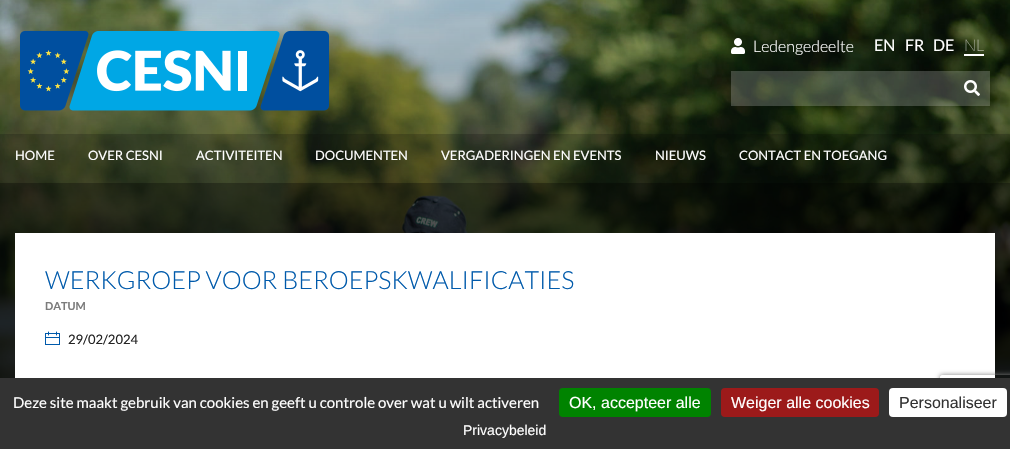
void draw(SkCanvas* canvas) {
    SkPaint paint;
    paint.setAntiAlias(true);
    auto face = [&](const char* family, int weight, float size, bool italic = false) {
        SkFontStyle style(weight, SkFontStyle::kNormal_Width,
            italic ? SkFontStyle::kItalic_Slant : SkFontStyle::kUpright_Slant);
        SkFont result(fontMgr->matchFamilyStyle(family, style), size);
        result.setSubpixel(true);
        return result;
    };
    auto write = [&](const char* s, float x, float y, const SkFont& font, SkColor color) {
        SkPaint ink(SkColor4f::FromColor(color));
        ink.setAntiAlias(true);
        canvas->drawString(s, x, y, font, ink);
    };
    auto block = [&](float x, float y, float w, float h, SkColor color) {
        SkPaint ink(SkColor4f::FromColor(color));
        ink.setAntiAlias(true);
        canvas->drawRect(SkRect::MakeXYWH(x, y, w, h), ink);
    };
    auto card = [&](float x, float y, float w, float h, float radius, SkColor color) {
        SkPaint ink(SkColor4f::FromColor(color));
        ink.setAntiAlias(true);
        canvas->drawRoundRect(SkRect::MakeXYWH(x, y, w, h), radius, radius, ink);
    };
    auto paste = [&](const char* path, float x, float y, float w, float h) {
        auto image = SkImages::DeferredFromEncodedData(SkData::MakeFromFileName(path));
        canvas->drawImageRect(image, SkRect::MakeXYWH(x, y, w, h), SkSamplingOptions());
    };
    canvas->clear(SK_ColorWHITE);
    paste("pic1.png", 0, 0, 1010, 378);
    block(0, 0, 1010, 183, SkColorSetARGB(26, 0, 0, 0));
    paste("pic2.png", 20, 30, 310, 81);
    paste("pic3.png", 731, 38, 14, 16);
    auto kFont1 = face("Lato", 300, 16);
    write("Ledengedeelte", 753, 52, kFont1, SK_ColorWHITE);
    auto kFont2 = face("Lato", 400, 16);
    write("EN", 874, 51, kFont2, SK_ColorWHITE);
    write("FR", 905, 51, kFont2, SK_ColorWHITE);
    write("DE", 933, 51, kFont2, SK_ColorWHITE);
    block(964, 54, 20, 2, SK_ColorWHITE);
    auto kFont3 = face("Lato", 100, 16);
    write("NL", 964, 51, kFont3, SK_ColorWHITE);
    block(731, 71, 223, 35, SkColorSetARGB(51, 255, 255, 255));
    block(954, 71, 36, 35, SkColorSetARGB(51, 255, 255, 255));
    paste("pic4.png", 964, 80, 16, 16);
    block(0, 134, 1010, 49, SkColorSetARGB(51, 0, 0, 0));
    auto kFont4 = face("Lato", 400, 13);
    write("HOME", 15, 160, kFont4, SK_ColorWHITE);
    write("OVER CESNI", 88, 160, kFont4, SK_ColorWHITE);
    write("ACTIVITEITEN", 196, 160, kFont4, SK_ColorWHITE);
    write("DOCUMENTEN", 315, 160, kFont4, SK_ColorWHITE);
    write("VERGADERINGEN EN EVENTS", 441, 160, kFont4, SK_ColorWHITE);
    write("NIEUWS", 655, 160, kFont4, SK_ColorWHITE);
    write("CONTACT EN TOEGANG", 739, 160, kFont4, SK_ColorWHITE);
    block(0, 183, 1010, 195, SkColorSetARGB(128, 0, 0, 0));
    block(15, 233, 980, 145, SK_ColorWHITE);
    auto kFont5 = face("Lato", 300, 25);
    write("WERKGROEP VOOR BEROEPSKWALIFICATIES", 45, 289, kFont5, SkColorSetRGB(0, 90, 171));
    auto kFont6 = face("Lato", 700, 11);
    write("DATUM", 45, 310, kFont6, SkColorSetRGB(124, 124, 124));
    paste("pic5.png", 45, 331, 15, 14);
    write("29/02/2024", 68, 344, kFont4, SkColorSetRGB(36, 36, 36));
    canvas->save();
    canvas->clipPath(SkPathBuilder(SkPathFillType::kEvenOdd).moveTo(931, 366).lineTo(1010, 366).lineTo(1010, 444).lineTo(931, 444).close().moveTo(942, 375).lineTo(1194, 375).cubicTo(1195, 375, 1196, 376, 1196, 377).lineTo(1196, 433).cubicTo(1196, 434, 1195, 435, 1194, 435).lineTo(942, 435).cubicTo(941, 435, 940, 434, 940, 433).lineTo(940, 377).cubicTo(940, 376, 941, 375, 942, 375).close().detach(), true);
    paint.setColor(SkColorSetRGB(128, 128, 128));
    paint.setMaskFilter(SkMaskFilter::MakeBlur(kNormal_SkBlurStyle, 2.5f));
    canvas->drawRoundRect(SkRect::MakeXYWH(940, 375, 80, 60), 2, 2, paint);
    paint.setMaskFilter(nullptr);
    canvas->restore();
    block(0, 378, 1010, 71, SkColorSetRGB(51, 51, 51));
    auto kFont7 = face("Lato", 400, 15);
    write("Deze site maakt gebruik van cookies en geeft u controle over wat u wilt activeren", 13, 408, kFont7, SK_ColorWHITE);
    card(559, 388, 152, 29, 4, SkColorSetRGB(0, 131, 0));
    auto kFont8 = face("Liberation Sans", 400, 16);
    write("OK, accepteer alle", 569, 408, kFont8, SK_ColorWHITE);
    card(721, 388, 158, 29, 4, SkColorSetRGB(156, 26, 26));
    write("Weiger alle cookies", 731, 408, kFont8, SK_ColorWHITE);
    card(889, 388, 118, 29, 4, SK_ColorWHITE);
    write("Personaliseer", 899, 408, kFont8, SkColorSetRGB(51, 51, 51));
    auto kFont9 = face("Liberation Sans", 400, 14);
    write("Privacybeleid", 463, 435, kFont9, SK_ColorWHITE);
}
